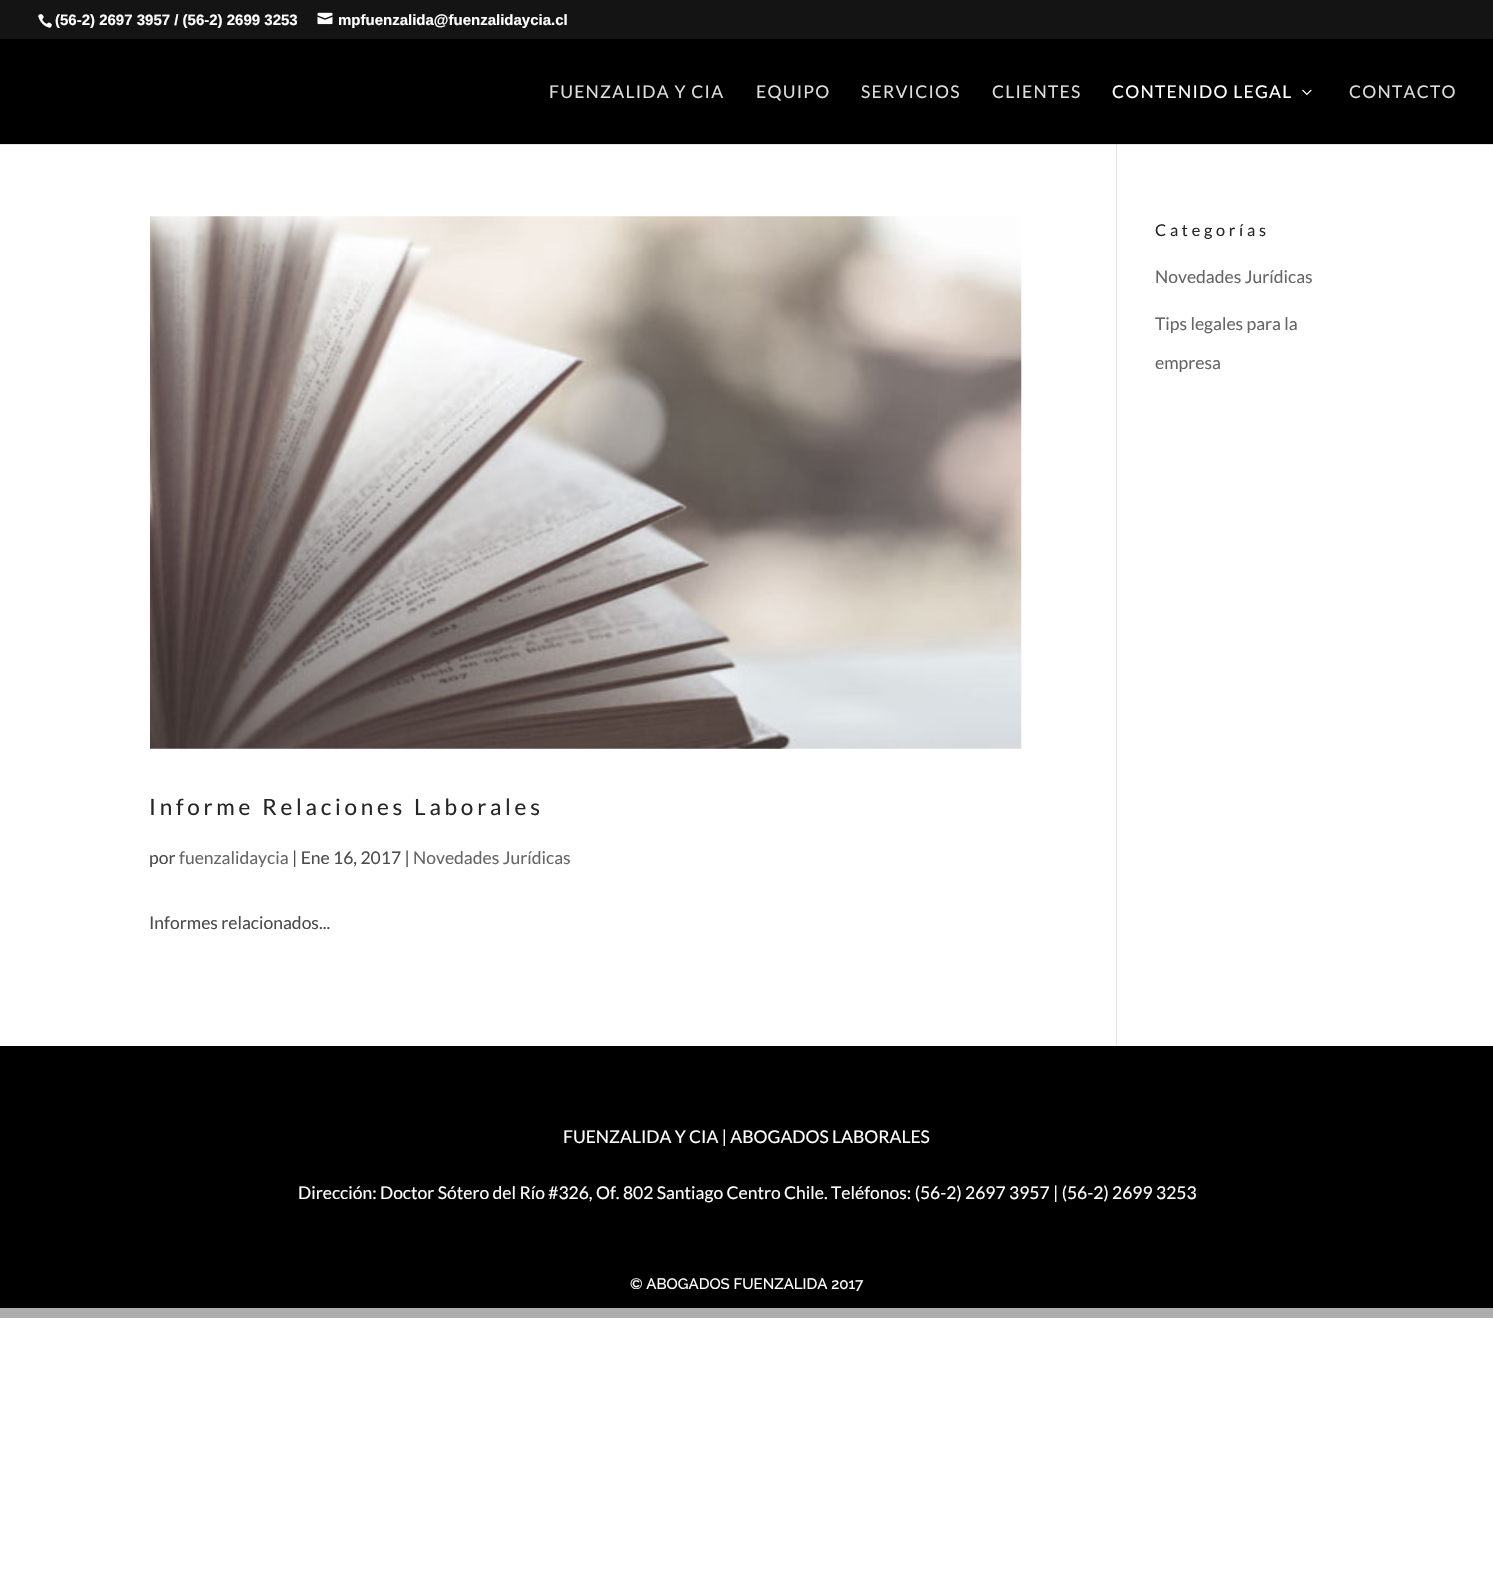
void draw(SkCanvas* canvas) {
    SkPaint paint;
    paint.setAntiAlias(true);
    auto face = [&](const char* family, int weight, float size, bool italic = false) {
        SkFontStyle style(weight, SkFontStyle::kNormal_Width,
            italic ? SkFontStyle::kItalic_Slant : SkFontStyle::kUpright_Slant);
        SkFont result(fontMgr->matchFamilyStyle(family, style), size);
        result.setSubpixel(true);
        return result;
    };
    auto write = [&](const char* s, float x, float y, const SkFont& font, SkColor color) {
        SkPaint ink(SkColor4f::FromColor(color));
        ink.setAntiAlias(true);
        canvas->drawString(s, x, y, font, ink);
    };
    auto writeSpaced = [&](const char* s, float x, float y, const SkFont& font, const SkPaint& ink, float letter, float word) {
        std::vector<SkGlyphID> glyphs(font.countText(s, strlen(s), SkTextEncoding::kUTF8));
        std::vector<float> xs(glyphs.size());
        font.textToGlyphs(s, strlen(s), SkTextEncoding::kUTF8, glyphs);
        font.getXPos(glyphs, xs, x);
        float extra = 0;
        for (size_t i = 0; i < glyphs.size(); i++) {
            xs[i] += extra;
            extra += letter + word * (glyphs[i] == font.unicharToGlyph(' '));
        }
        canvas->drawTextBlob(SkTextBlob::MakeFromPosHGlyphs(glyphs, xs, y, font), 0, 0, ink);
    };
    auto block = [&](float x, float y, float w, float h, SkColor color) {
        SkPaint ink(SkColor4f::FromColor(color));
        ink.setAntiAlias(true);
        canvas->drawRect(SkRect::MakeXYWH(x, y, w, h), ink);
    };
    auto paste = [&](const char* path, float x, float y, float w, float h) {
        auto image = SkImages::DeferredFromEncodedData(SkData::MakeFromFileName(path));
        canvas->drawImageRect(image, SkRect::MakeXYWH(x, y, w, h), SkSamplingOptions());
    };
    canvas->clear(SK_ColorWHITE);
    block(0, 1308, 1493, 10, SkColorSetRGB(173, 173, 173));
    block(0, 0, 1493, 39, SkColorSetRGB(20, 20, 20));
    paste("pic1.png", 38, 14, 14, 14);
    auto kFont1 = face("Liberation Sans", 700, 15);
    write("(56-2) 2697 3957 / (56-2) 2699 3253", 55, 25, kFont1, SK_ColorWHITE);
    paste("pic2.png", 317, 12, 16, 13);
    write("mpfuenzalida@fuenzalidaycia.cl", 338, 25, kFont1, SK_ColorWHITE);
    block(1116, 144, 1, 902, SkColorSetRGB(226, 226, 226));
    paint.setColor(SkColorSetARGB(26, 0, 0, 0));
    canvas->drawPath(SkPathBuilder().moveTo(0, 144).lineTo(0, 145).lineTo(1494, 145).lineTo(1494, 40).lineTo(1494, 144).close().detach(), paint);
    block(0, 39, 1493, 105, SK_ColorBLACK);
    auto kFont2 = face("Lato", 400, 17.5f);
    paint.setColor(SkColorSetRGB(221, 221, 221));
    writeSpaced("FUENZALIDA Y CIA", 549, 98, kFont2, paint, 1.25f, 0);
    writeSpaced("EQUIPO", 756, 98, kFont2, paint, 1.25f, 0);
    writeSpaced("SERVICIOS", 861, 98, kFont2, paint, 1.25f, 0);
    writeSpaced("CLIENTES", 992, 98, kFont2, paint, 1.25f, 0);
    paint.setColor(SK_ColorWHITE);
    writeSpaced("CONTENIDO LEGAL", 1112, 98, kFont2, paint, 1.25f, 0);
    paste("pic3.png", 1302, 89, 10, 6);
    paint.setColor(SkColorSetRGB(221, 221, 221));
    writeSpaced("CONTACTO", 1349, 98, kFont2, paint, 1.25f, 0);
    auto kFont3 = face("Lato", 400, 16.25f);
    paint.setColor(SkColorSetRGB(38, 38, 38));
    writeSpaced("Categorías", 1155, 236, kFont3, paint, 3.75f, 0);
    write("Novedades Jurídicas", 1155, 283, kFont2, SkColorSetRGB(102, 102, 102));
    write("Tips legales para la", 1155, 330, kFont2, SkColorSetRGB(102, 102, 102));
    write("empresa", 1155, 369, kFont2, SkColorSetRGB(102, 102, 102));
    paste("pic4.png", 150, 216, 872, 533);
    auto kFont4 = face("Lato", 400, 22.5f);
    writeSpaced("Informe Relaciones Laborales", 149, 815, kFont4, paint, 3.75f, 0);
    write("por", 149, 864, kFont2, SkColorSetRGB(76, 76, 76));
    write("fuenzalidaycia", 179, 864, kFont2, SkColorSetRGB(102, 102, 102));
    write("| Ene 16, 2017 |", 292, 864, kFont2, SkColorSetRGB(76, 76, 76));
    write("Novedades Jurídicas", 413, 864, kFont2, SkColorSetRGB(102, 102, 102));
    write("Informes relacionados...", 149, 929, kFont2, SkColorSetRGB(76, 76, 76));
    block(0, 1046, 1493, 262, SK_ColorBLACK);
    write("FUENZALIDA Y CIA | ABOGADOS LABORALES", 563, 1143, kFont2, SK_ColorWHITE);
    write("Dirección: Doctor Sótero del Río #326, Of. 802 Santiago Centro Chile. Teléfonos: (56-2) 2697 3957 | (56-2) 2699 3253", 298, 1199, kFont2, SK_ColorWHITE);
    auto kFont5 = face("Raleway", 500, 15);
    write("© ABOGADOS FUENZALIDA 2017", 630, 1289, kFont5, SK_ColorWHITE);
}
